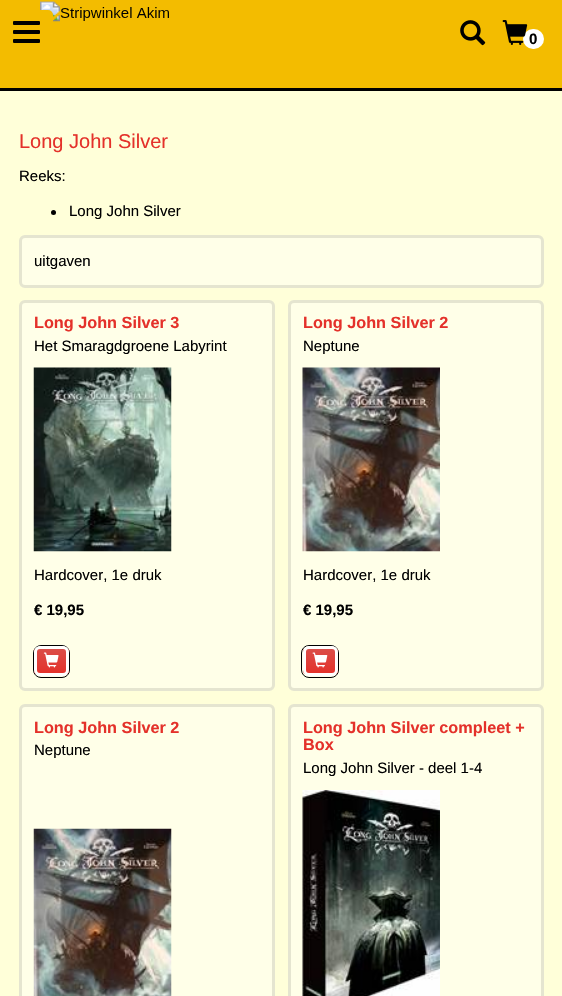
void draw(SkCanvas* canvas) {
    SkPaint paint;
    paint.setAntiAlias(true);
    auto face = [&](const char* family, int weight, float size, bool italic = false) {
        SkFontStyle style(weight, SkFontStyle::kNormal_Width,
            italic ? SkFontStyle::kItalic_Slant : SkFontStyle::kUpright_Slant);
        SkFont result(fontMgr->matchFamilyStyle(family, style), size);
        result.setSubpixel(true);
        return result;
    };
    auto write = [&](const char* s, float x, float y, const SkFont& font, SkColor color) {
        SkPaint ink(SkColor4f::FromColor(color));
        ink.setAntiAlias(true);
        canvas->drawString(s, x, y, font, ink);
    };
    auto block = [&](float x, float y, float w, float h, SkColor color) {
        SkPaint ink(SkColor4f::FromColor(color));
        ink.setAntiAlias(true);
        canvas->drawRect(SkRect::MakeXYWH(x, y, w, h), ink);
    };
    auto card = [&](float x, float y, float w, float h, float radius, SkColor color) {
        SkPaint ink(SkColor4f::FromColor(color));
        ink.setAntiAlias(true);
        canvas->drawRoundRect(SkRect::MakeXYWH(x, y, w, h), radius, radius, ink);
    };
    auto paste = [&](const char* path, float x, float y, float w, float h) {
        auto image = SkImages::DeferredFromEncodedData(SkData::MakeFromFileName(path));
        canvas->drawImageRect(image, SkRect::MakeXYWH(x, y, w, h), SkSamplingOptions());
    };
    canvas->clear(SkColorSetRGB(255, 255, 217));
    block(0, 0, 562, 88, SkColorSetRGB(243, 188, 0));
    block(0, 88, 562, 3, SK_ColorBLACK);
    paste("pic1.png", 40, 1, 129, 21);
    card(0, 10, 53, 44, 5, SkColorSetRGB(243, 188, 0));
    card(13, 21, 27, 4, 1, SK_ColorBLACK);
    card(13, 30, 27, 4, 1, SK_ColorBLACK);
    card(13, 39, 27, 4, 1, SK_ColorBLACK);
    paste("pic2.png", 460, 20, 26, 26);
    card(523, 29, 21, 20, 10, SK_ColorWHITE);
    paste("pic3.png", 502, 20, 26, 25);
    auto kFont1 = face("Liberation Sans", 700, 15);
    write("0", 529, 44, kFont1, SK_ColorBLACK);
    auto kFont2 = face("Liberation Sans", 400, 20);
    write("Long John Silver", 19, 148, kFont2, SkColorSetRGB(228, 49, 42));
    auto kFont3 = face("Liberation Sans", 400, 15);
    write("Reeks:", 19, 181, kFont3, SK_ColorBLACK);
    paint.setColor(SK_ColorBLACK);
    canvas->drawCircle(53.5f, 212.5f, 2.5f, paint);
    write("Long John Silver", 69, 216, kFont3, SK_ColorBLACK);
    card(19, 235, 525, 53, 6, SkColorSetRGB(255, 255, 232));
    paint.setStyle(SkPaint::kStroke_Style);
    paint.setStrokeWidth(3);
    paint.setColor(SkColorSetARGB(26, 0, 0, 0));
    canvas->drawRoundRect(SkRect::MakeXYWH(20.5f, 236.5f, 522, 50), 4.5f, 4.5f, paint);
    write("uitgaven", 34, 266, kFont3, SK_ColorBLACK);
    card(19, 300, 256, 391, 6, SkColorSetRGB(255, 255, 232));
    canvas->drawRoundRect(SkRect::MakeXYWH(20.5f, 301.5f, 253, 388), 4.5f, 4.5f, paint);
    auto kFont4 = face("Liberation Sans", 700, 16.25f);
    write("Long John Silver 3", 34, 328, kFont4, SkColorSetRGB(228, 49, 42));
    write("Het Smaragdgroene Labyrint", 34, 351, kFont3, SK_ColorBLACK);
    paste("pic4.png", 33, 367, 139, 185);
    write("Hardcover, 1e druk", 34, 580, kFont3, SK_ColorBLACK);
    write("€ 19,95", 34, 615, kFont1, SK_ColorBLACK);
    paint.setStrokeWidth(1);
    paint.setColor(SK_ColorBLACK);
    canvas->drawRoundRect(SkRect::MakeXYWH(33.5f, 645.5f, 36, 32), 7.5f, 7.5f, paint);
    canvas->save();
    canvas->clipPath(SkPathBuilder().moveTo(40, 646).lineTo(63, 646).cubicTo(66.5f, 646, 69, 648.5f, 69, 652).lineTo(69, 670).cubicTo(69, 673.5f, 66.5f, 676, 63, 676).lineTo(40, 676).cubicTo(36.5f, 676, 34, 673.5f, 34, 670).lineTo(34, 652).cubicTo(34, 648.5f, 36.5f, 646, 40, 646).close().detach(), true);
    paint.setStyle(SkPaint::kFill_Style);
    {
        const SkColor colors[] = {SkColorSetRGB(226, 86, 81), SkColorSetRGB(219, 77, 72), SkColorSetRGB(228, 49, 42), SkColorSetRGB(226, 86, 81), SkColorSetRGB(228, 49, 42)};
        const float stops[] = {0.01f, 0.01f, 1, 1, 1};
        const SkPoint ends[] = {{51, 649}, {51, 674}};
        paint.setShader(SkGradientShader::MakeLinear(ends, colors, stops, 5, SkTileMode::kClamp));
        paint.setAlpha(255);
    }
    canvas->drawRect(SkRect::MakeXYWH(34, 649, 35, 25), paint);
    canvas->restore();
    paint.setStyle(SkPaint::kStroke_Style);
    paint.setStrokeWidth(3);
    paint.setShader(nullptr);
    paint.setColor(SK_ColorWHITE);
    canvas->drawRoundRect(SkRect::MakeXYWH(35.5f, 647.5f, 32, 27), 4.5f, 4.5f, paint);
    paste("pic5.png", 43, 652, 16, 16);
    card(288, 300, 256, 391, 6, SkColorSetRGB(255, 255, 232));
    paint.setColor(SkColorSetARGB(26, 0, 0, 0));
    canvas->drawRoundRect(SkRect::MakeXYWH(289.5f, 301.5f, 253, 388), 4.5f, 4.5f, paint);
    write("Long John Silver 2", 303, 328, kFont4, SkColorSetRGB(228, 49, 42));
    write("Neptune", 303, 351, kFont3, SK_ColorBLACK);
    paste("pic6.png", 302, 367, 138, 185);
    write("Hardcover, 1e druk", 303, 580, kFont3, SK_ColorBLACK);
    write("€ 19,95", 303, 615, kFont1, SK_ColorBLACK);
    paint.setStrokeWidth(1);
    paint.setColor(SK_ColorBLACK);
    canvas->drawRoundRect(SkRect::MakeXYWH(301.5f, 645.5f, 37, 32), 7.5f, 7.5f, paint);
    canvas->save();
    canvas->clipPath(SkPathBuilder().moveTo(309, 646).lineTo(332, 646).cubicTo(335.5f, 646, 338, 648.5f, 338, 652).lineTo(338, 670).cubicTo(338, 673.5f, 335.5f, 676, 332, 676).lineTo(309, 676).cubicTo(305.5f, 676, 303, 673.5f, 303, 670).lineTo(303, 652).cubicTo(303, 648.5f, 305.5f, 646, 309, 646).close().detach(), true);
    paint.setStyle(SkPaint::kFill_Style);
    {
        const SkColor colors[] = {SkColorSetRGB(226, 86, 81), SkColorSetRGB(219, 77, 72), SkColorSetRGB(228, 49, 42), SkColorSetRGB(226, 86, 81), SkColorSetRGB(228, 49, 42)};
        const float stops[] = {0.01f, 0.01f, 1, 1, 1};
        const SkPoint ends[] = {{320, 649}, {320, 674}};
        paint.setShader(SkGradientShader::MakeLinear(ends, colors, stops, 5, SkTileMode::kClamp));
        paint.setAlpha(255);
    }
    canvas->drawRect(SkRect::MakeXYWH(303, 649, 35, 25), paint);
    canvas->restore();
    paint.setStyle(SkPaint::kStroke_Style);
    paint.setStrokeWidth(3);
    paint.setShader(nullptr);
    paint.setColor(SK_ColorWHITE);
    canvas->drawRoundRect(SkRect::MakeXYWH(304.5f, 647.5f, 32, 27), 4.5f, 4.5f, paint);
    paste("pic7.png", 312, 652, 16, 16);
    card(19, 704, 256, 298, 6, SkColorSetRGB(255, 255, 232));
    paint.setColor(SkColorSetARGB(26, 0, 0, 0));
    canvas->drawRoundRect(SkRect::MakeXYWH(20.5f, 705.5f, 253, 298), 4.5f, 4.5f, paint);
    write("Long John Silver 2", 34, 733, kFont4, SkColorSetRGB(228, 49, 42));
    write("Neptune", 34, 755, kFont3, SK_ColorBLACK);
    paste("pic8.png", 33, 828, 139, 168);
    card(288, 704, 256, 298, 6, SkColorSetRGB(255, 255, 232));
    canvas->drawRoundRect(SkRect::MakeXYWH(289.5f, 705.5f, 253, 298), 4.5f, 4.5f, paint);
    write("Long John Silver compleet +", 303, 733, kFont4, SkColorSetRGB(228, 49, 42));
    write("Box", 303, 750, kFont4, SkColorSetRGB(228, 49, 42));
    write("Long John Silver - deel 1-4", 303, 773, kFont3, SK_ColorBLACK);
    paste("pic9.png", 302, 790, 138, 206);
}
